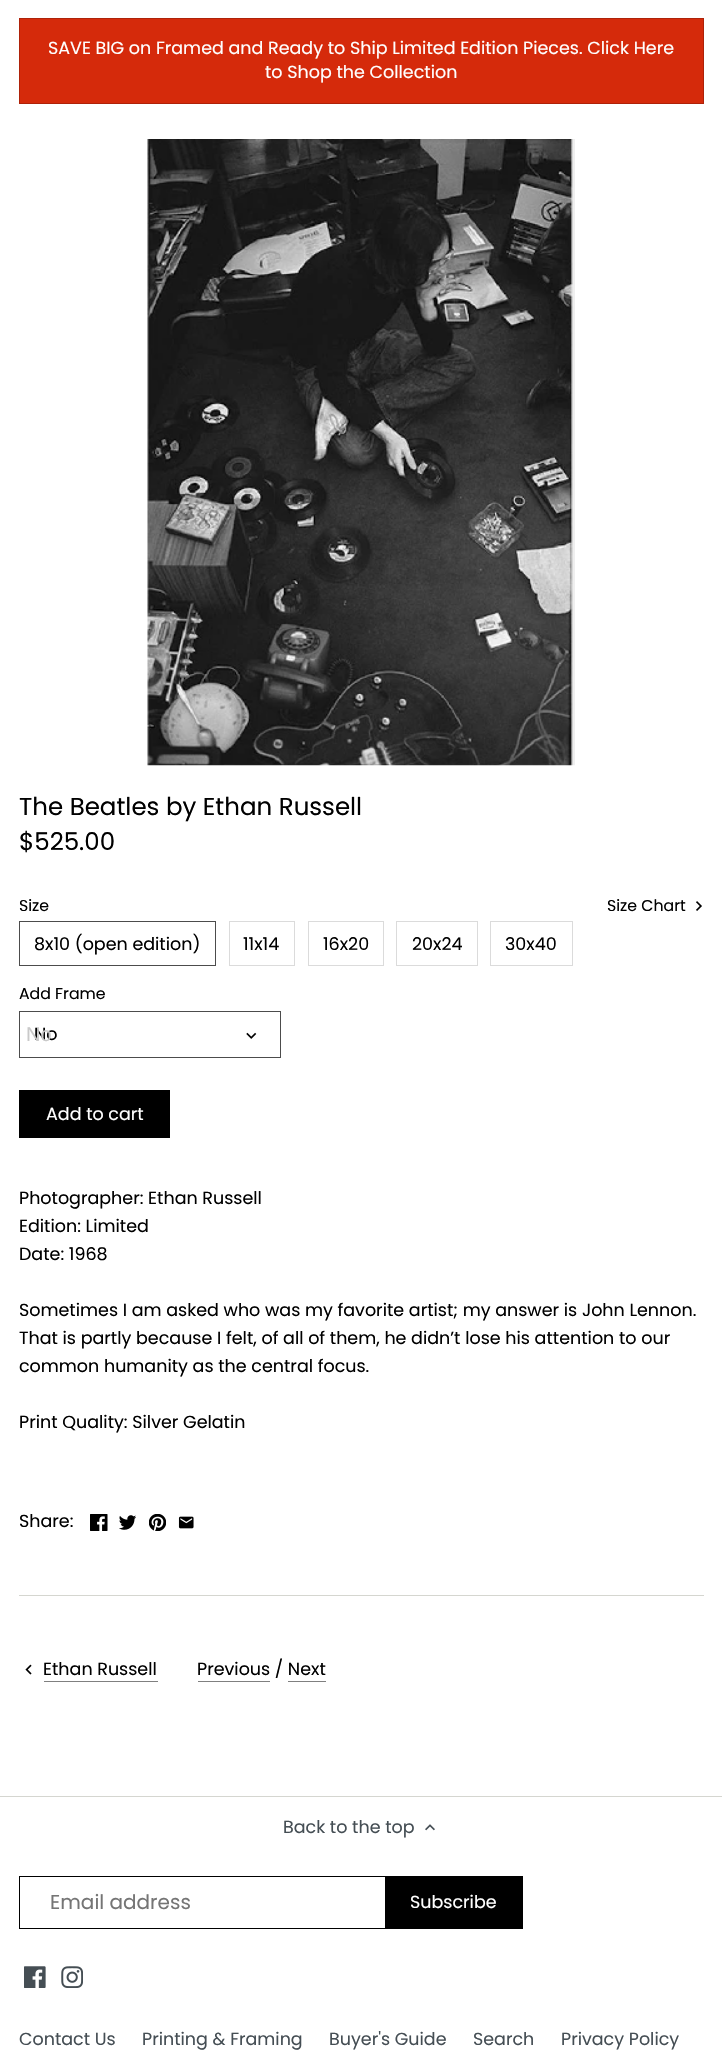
void draw(SkCanvas* canvas) {
    SkPaint paint;
    paint.setAntiAlias(true);
    auto face = [&](const char* family, int weight, float size, bool italic = false) {
        SkFontStyle style(weight, SkFontStyle::kNormal_Width,
            italic ? SkFontStyle::kItalic_Slant : SkFontStyle::kUpright_Slant);
        SkFont result(fontMgr->matchFamilyStyle(family, style), size);
        result.setSubpixel(true);
        return result;
    };
    auto write = [&](const char* s, float x, float y, const SkFont& font, SkColor color) {
        SkPaint ink(SkColor4f::FromColor(color));
        ink.setAntiAlias(true);
        canvas->drawString(s, x, y, font, ink);
    };
    auto block = [&](float x, float y, float w, float h, SkColor color) {
        SkPaint ink(SkColor4f::FromColor(color));
        ink.setAntiAlias(true);
        canvas->drawRect(SkRect::MakeXYWH(x, y, w, h), ink);
    };
    auto paste = [&](const char* path, float x, float y, float w, float h) {
        auto image = SkImages::DeferredFromEncodedData(SkData::MakeFromFileName(path));
        canvas->drawImageRect(image, SkRect::MakeXYWH(x, y, w, h), SkSamplingOptions());
    };
    canvas->clear(SK_ColorWHITE);
    paint.setColor(SkColorSetRGB(213, 42, 11));
    canvas->drawRect(SkRect::MakeXYWH(19.5f, 18.5f, 684, 85), paint);
    paint.setStyle(SkPaint::kStroke_Style);
    paint.setStrokeWidth(1);
    paint.setColor(SkColorSetRGB(174, 34, 9));
    canvas->drawRect(SkRect::MakeXYWH(19.5f, 18.5f, 684, 85), paint);
    auto kFont1 = face("Poppins", 400, 17.5f);
    write("SAVE BIG on Framed and Ready to Ship Limited Edition Pieces. Click Here", 48, 54, kFont1, SK_ColorWHITE);
    write("to Shop the Collection", 265, 78, kFont1, SK_ColorWHITE);
    paste("pic1.png", 147, 139, 428, 627);
    auto kFont2 = face("Poppins", 400, 24.5f);
    write("The Beatles by Ethan Russell", 19, 815, kFont2, SK_ColorBLACK);
    write("$525.00", 19, 850, kFont2, SK_ColorBLACK);
    auto kFont3 = face("Poppins", 400, 15.75f);
    write("Size", 19, 911, kFont3, SK_ColorBLACK);
    write("Size Chart", 607, 911, kFont3, SK_ColorBLACK);
    paste("pic2.png", 696, 901, 6, 10);
    paint.setColor(SkColorSetRGB(76, 76, 76));
    canvas->drawRect(SkRect::MakeXYWH(19.5f, 921.5f, 196, 44), paint);
    write("8x10 (open edition)", 34, 950, kFont1, SK_ColorBLACK);
    paint.setColor(SkColorSetRGB(219, 219, 219));
    canvas->drawRect(SkRect::MakeXYWH(229.5f, 921.5f, 65, 44), paint);
    write("11x14", 243, 950, kFont1, SK_ColorBLACK);
    canvas->drawRect(SkRect::MakeXYWH(308.5f, 921.5f, 75, 44), paint);
    write("16x20", 323, 950, kFont1, SK_ColorBLACK);
    canvas->drawRect(SkRect::MakeXYWH(396.5f, 921.5f, 81, 44), paint);
    write("20x24", 412, 950, kFont1, SK_ColorBLACK);
    canvas->drawRect(SkRect::MakeXYWH(490.5f, 921.5f, 82, 44), paint);
    write("30x40", 505, 950, kFont1, SK_ColorBLACK);
    write("Add Frame", 19, 999, kFont3, SK_ColorBLACK);
    paint.setColor(SkColorSetRGB(76, 76, 76));
    canvas->drawRect(SkRect::MakeXYWH(19.5f, 1011.5f, 261, 46), paint);
    write("No", 34, 1040, kFont1, SK_ColorBLACK);
    auto kFont4 = face("Liberation Sans", 400, 20);
    write("No", 26, 1041, kFont4, SkColorSetRGB(201, 201, 201));
    paste("pic3.png", 246, 1032, 11, 7);
    block(19, 1090, 151, 48, SK_ColorBLACK);
    write("Add to cart", 46, 1120, kFont1, SK_ColorWHITE);
    write("Photographer: Ethan Russell", 19, 1204, kFont1, SK_ColorBLACK);
    write("Edition: Limited", 19, 1232, kFont1, SK_ColorBLACK);
    write("Date: 1968", 19, 1260, kFont1, SK_ColorBLACK);
    write("Sometimes I am asked who was my favorite artist; my answer is John Lennon.", 19, 1316, kFont1, SK_ColorBLACK);
    write("That is partly because I felt, of all of them, he didn’t lose his attention to our", 19, 1344, kFont1, SK_ColorBLACK);
    write("common humanity as the central focus.", 19, 1372, kFont1, SK_ColorBLACK);
    write("Print Quality: Silver Gelatin", 19, 1428, kFont1, SK_ColorBLACK);
    write("Share:", 19, 1527, kFont1, SK_ColorBLACK);
    paste("pic4.png", 90, 1514, 18, 17);
    paste("pic5.png", 119, 1515, 17, 15);
    paste("pic6.png", 149, 1514, 17, 17);
    paste("pic7.png", 178, 1516, 16, 13);
    block(19, 1595, 685, 1, SkColorSetRGB(213, 214, 208));
    paste("pic8.png", 25, 1664, 7, 11);
    write("Ethan Russell", 43, 1675, kFont1, SK_ColorBLACK);
    block(44, 1681, 114, 1, SkColorSetRGB(128, 128, 128));
    write("Previous / Next", 197, 1675, kFont1, SK_ColorBLACK);
    block(198, 1681, 72, 1, SkColorSetRGB(128, 128, 128));
    block(288, 1681, 38, 1, SkColorSetRGB(128, 128, 128));
    block(0, 1796, 722, 1, SkColorSetRGB(213, 214, 208));
    write("Back to the top", 283, 1833, kFont1, SkColorSetRGB(69, 78, 84));
    paste("pic9.png", 425, 1824, 10, 7);
    paint.setColor(SK_ColorBLACK);
    canvas->drawRect(SkRect::MakeXYWH(19.5f, 1876.5f, 501, 52), paint);
    auto kFont5 = face("Poppins", 400, 20);
    write("Email address", 50, 1909, kFont5, SkColorSetRGB(117, 117, 117));
    block(385, 1876, 138, 53, SK_ColorBLACK);
    write("Subscribe", 410, 1908, kFont1, SK_ColorWHITE);
    paste("pic10.png", 24, 1966, 22, 22);
    paste("pic11.png", 61, 1966, 22, 22);
    write("Contact Us", 19, 2045, kFont1, SkColorSetRGB(69, 78, 84));
    write("Printing & Framing", 142, 2045, kFont1, SkColorSetRGB(69, 78, 84));
    write("Buyer's Guide", 329, 2045, kFont1, SkColorSetRGB(69, 78, 84));
    write("Search", 473, 2045, kFont1, SkColorSetRGB(69, 78, 84));
    write("Privacy Policy", 561, 2045, kFont1, SkColorSetRGB(69, 78, 84));
}
